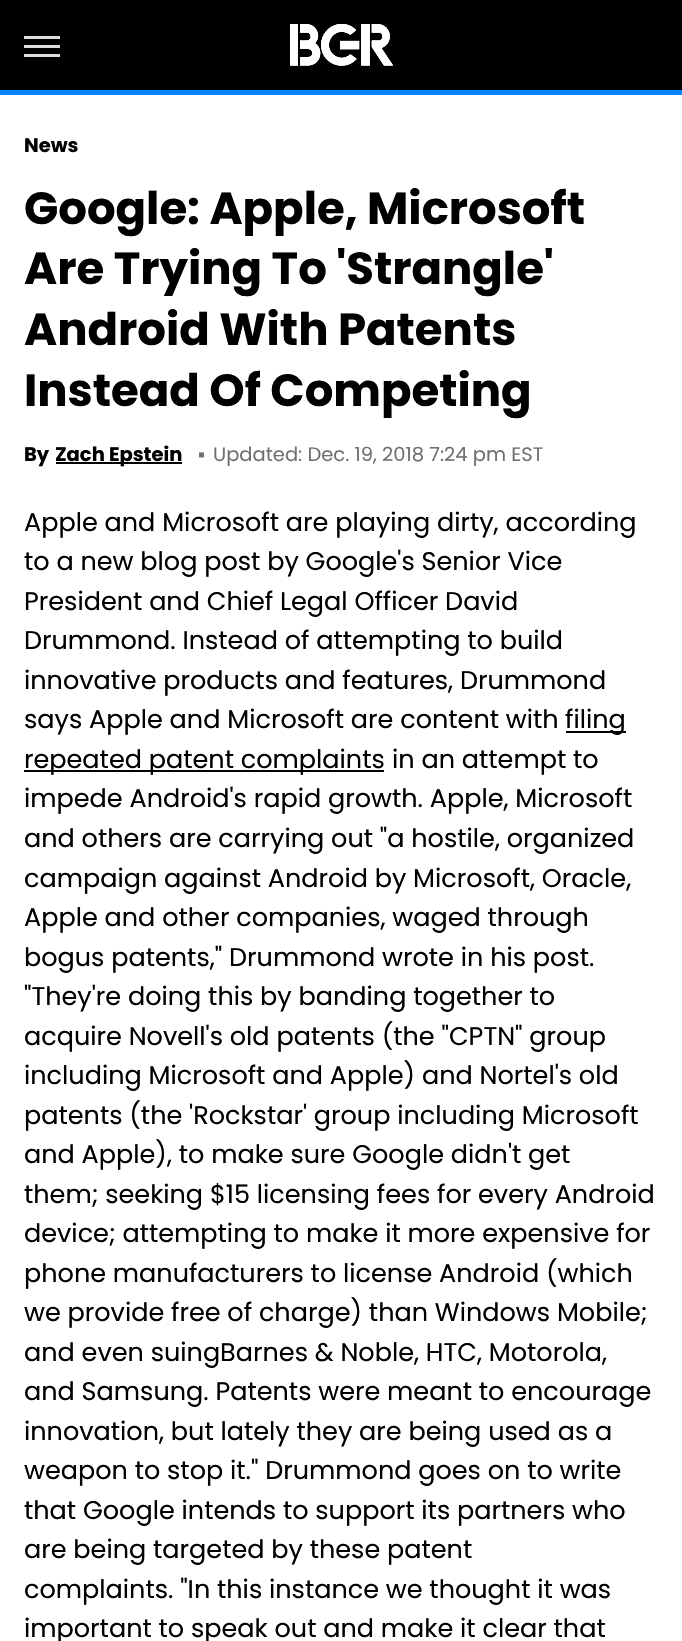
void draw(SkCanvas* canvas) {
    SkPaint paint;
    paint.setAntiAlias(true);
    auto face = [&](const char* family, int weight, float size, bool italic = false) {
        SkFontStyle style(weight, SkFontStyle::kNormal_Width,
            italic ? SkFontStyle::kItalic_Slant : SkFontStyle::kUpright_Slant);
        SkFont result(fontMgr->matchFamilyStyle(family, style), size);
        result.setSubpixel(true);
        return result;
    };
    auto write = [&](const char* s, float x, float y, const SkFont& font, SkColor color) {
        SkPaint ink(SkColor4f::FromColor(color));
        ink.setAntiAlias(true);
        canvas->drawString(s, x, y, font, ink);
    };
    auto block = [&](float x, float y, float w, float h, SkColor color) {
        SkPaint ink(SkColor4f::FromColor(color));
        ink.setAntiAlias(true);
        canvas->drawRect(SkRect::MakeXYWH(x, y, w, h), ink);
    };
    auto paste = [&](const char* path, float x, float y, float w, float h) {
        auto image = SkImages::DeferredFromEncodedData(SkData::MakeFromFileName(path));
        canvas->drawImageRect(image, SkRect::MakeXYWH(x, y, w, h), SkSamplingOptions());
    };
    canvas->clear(SK_ColorWHITE);
    block(0, 0, 682, 90, SK_ColorBLACK);
    block(0, 90, 682, 5, SkColorSetRGB(2, 132, 255));
    block(24, 36, 36, 3, SkColorSetRGB(221, 221, 221));
    block(24, 45, 36, 3, SkColorSetRGB(221, 221, 221));
    block(24, 54, 36, 3, SkColorSetRGB(221, 221, 221));
    paste("pic1.png", 290, 24, 103, 42);
    auto kFont1 = face("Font", 700, 19.5f);
    write("News", 24, 152, kFont1, SK_ColorBLACK);
    auto kFont2 = face("Font", 700, 45);
    write("Google: Apple, Microsoft", 24, 224, kFont2, SK_ColorBLACK);
    write("Are Trying To 'Strangle'", 24, 284, kFont2, SK_ColorBLACK);
    write("Android With Patents", 24, 345, kFont2, SK_ColorBLACK);
    write("Instead Of Competing", 24, 406, kFont2, SK_ColorBLACK);
    write("By", 24, 461, kFont1, SK_ColorBLACK);
    block(56, 462, 126, 2, SK_ColorBLACK);
    write("Zach Epstein", 55, 461, kFont1, SK_ColorBLACK);
    auto kFont3 = face("Liberation Sans", 400, 19.5f);
    write("▪", 198, 461, kFont3, SkColorSetRGB(112, 112, 112));
    auto kFont4 = face("poppins", 400, 19.5f);
    write("Updated: Dec. 19, 2018 7:24 pm EST", 213, 461, kFont4, SkColorSetRGB(112, 112, 112));
    auto kFont5 = face("poppins", 400, 25.5f);
    write("Apple and Microsoft are playing dirty, according", 24, 531, kFont5, SK_ColorBLACK);
    write("to a new blog post by Google's Senior Vice", 24, 570, kFont5, SK_ColorBLACK);
    write("President and Chief Legal Officer David", 24, 610, kFont5, SK_ColorBLACK);
    write("Drummond. Instead of attempting to build", 24, 649, kFont5, SK_ColorBLACK);
    write("innovative products and features, Drummond", 24, 689, kFont5, SK_ColorBLACK);
    write("says Apple and Microsoft are content with", 24, 728, kFont5, SK_ColorBLACK);
    block(566, 731, 60, 2, SK_ColorBLACK);
    write("filing", 565, 728, kFont5, SK_ColorBLACK);
    block(24, 770, 360, 2, SK_ColorBLACK);
    write("repeated patent complaints", 24, 768, kFont5, SK_ColorBLACK);
    write("in an attempt to", 392, 768, kFont5, SK_ColorBLACK);
    write("impede Android's rapid growth. Apple, Microsoft", 24, 807, kFont5, SK_ColorBLACK);
    write("and others are carrying out \"a hostile, organized", 24, 847, kFont5, SK_ColorBLACK);
    write("campaign against Android by Microsoft, Oracle,", 24, 887, kFont5, SK_ColorBLACK);
    write("Apple and other companies, waged through", 24, 926, kFont5, SK_ColorBLACK);
    write("bogus patents,\" Drummond wrote in his post.", 24, 966, kFont5, SK_ColorBLACK);
    write("\"They're doing this by banding together to", 24, 1005, kFont5, SK_ColorBLACK);
    write("acquire Novell's old patents (the \"CPTN\" group", 24, 1045, kFont5, SK_ColorBLACK);
    write("including Microsoft and Apple) and Nortel's old", 24, 1084, kFont5, SK_ColorBLACK);
    write("patents (the 'Rockstar' group including Microsoft", 24, 1124, kFont5, SK_ColorBLACK);
    write("and Apple), to make sure Google didn't get", 24, 1163, kFont5, SK_ColorBLACK);
    write("them; seeking $15 licensing fees for every Android", 24, 1203, kFont5, SK_ColorBLACK);
    write("device; attempting to make it more expensive for", 24, 1242, kFont5, SK_ColorBLACK);
    write("phone manufacturers to license Android (which", 24, 1282, kFont5, SK_ColorBLACK);
    write("we provide free of charge) than Windows Mobile;", 24, 1321, kFont5, SK_ColorBLACK);
    write("and even suingBarnes & Noble, HTC, Motorola,", 24, 1361, kFont5, SK_ColorBLACK);
    write("and Samsung. Patents were meant to encourage", 24, 1400, kFont5, SK_ColorBLACK);
    write("innovation, but lately they are being used as a", 24, 1440, kFont5, SK_ColorBLACK);
    write("weapon to stop it.\" Drummond goes on to write", 24, 1479, kFont5, SK_ColorBLACK);
    write("that Google intends to support its partners who", 24, 1519, kFont5, SK_ColorBLACK);
    write("are being targeted by these patent", 24, 1558, kFont5, SK_ColorBLACK);
    write("complaints. \"In this instance we thought it was", 24, 1598, kFont5, SK_ColorBLACK);
    write("important to speak out and make it clear that", 24, 1637, kFont5, SK_ColorBLACK);
}
